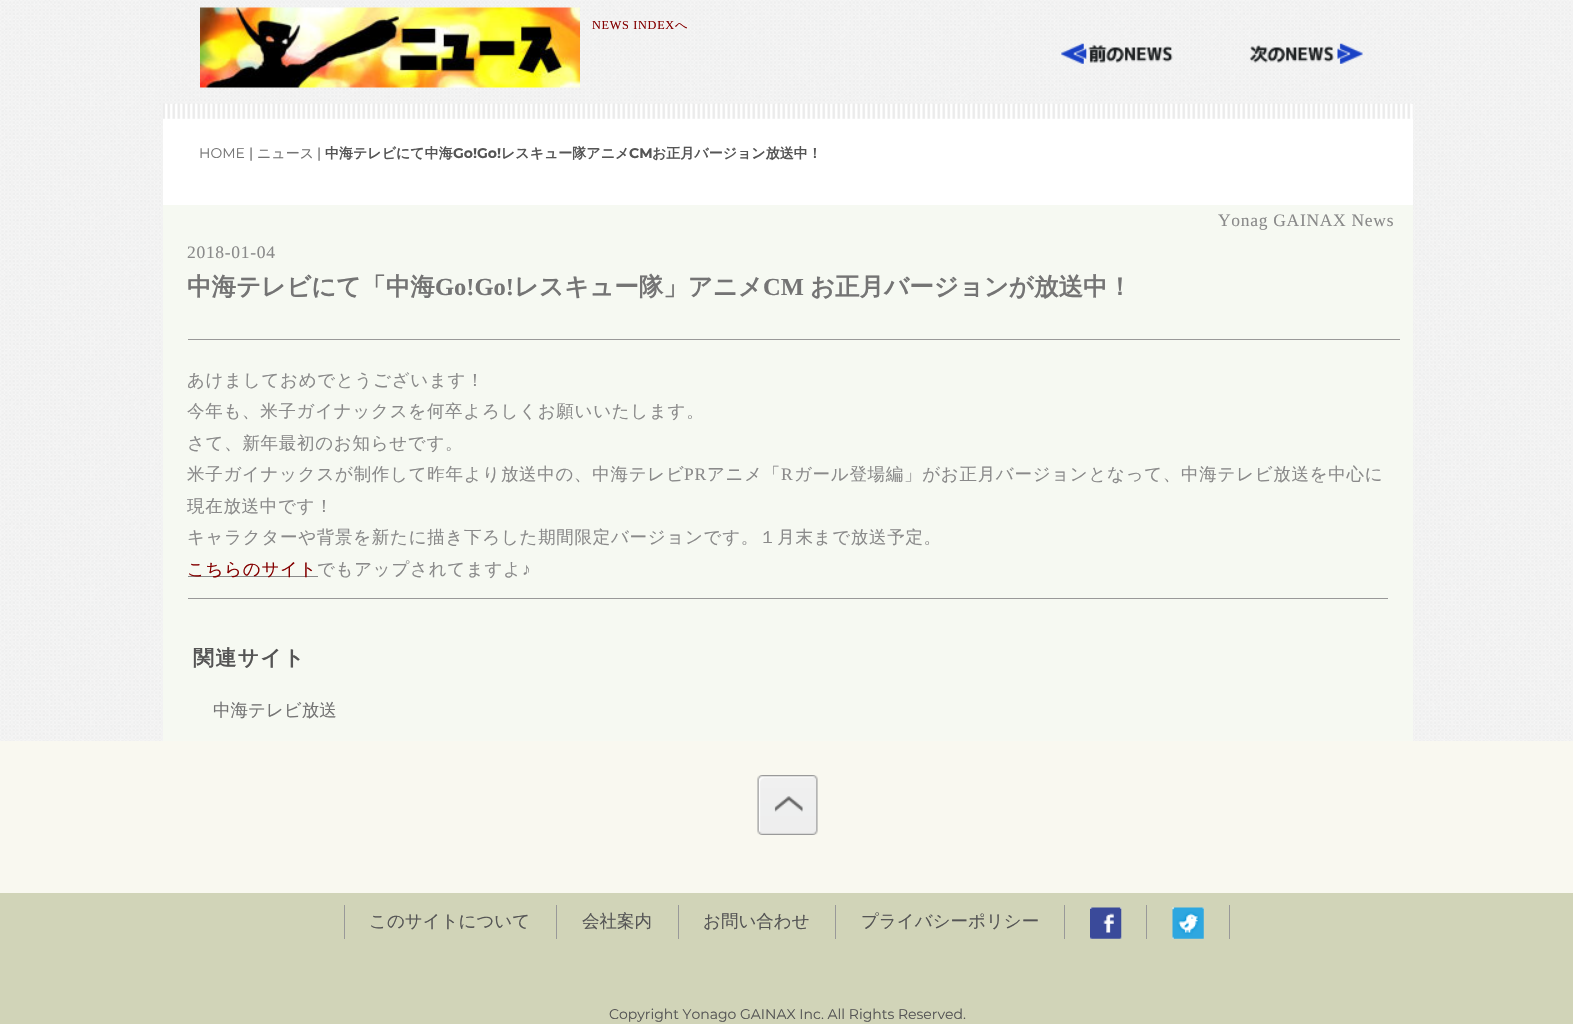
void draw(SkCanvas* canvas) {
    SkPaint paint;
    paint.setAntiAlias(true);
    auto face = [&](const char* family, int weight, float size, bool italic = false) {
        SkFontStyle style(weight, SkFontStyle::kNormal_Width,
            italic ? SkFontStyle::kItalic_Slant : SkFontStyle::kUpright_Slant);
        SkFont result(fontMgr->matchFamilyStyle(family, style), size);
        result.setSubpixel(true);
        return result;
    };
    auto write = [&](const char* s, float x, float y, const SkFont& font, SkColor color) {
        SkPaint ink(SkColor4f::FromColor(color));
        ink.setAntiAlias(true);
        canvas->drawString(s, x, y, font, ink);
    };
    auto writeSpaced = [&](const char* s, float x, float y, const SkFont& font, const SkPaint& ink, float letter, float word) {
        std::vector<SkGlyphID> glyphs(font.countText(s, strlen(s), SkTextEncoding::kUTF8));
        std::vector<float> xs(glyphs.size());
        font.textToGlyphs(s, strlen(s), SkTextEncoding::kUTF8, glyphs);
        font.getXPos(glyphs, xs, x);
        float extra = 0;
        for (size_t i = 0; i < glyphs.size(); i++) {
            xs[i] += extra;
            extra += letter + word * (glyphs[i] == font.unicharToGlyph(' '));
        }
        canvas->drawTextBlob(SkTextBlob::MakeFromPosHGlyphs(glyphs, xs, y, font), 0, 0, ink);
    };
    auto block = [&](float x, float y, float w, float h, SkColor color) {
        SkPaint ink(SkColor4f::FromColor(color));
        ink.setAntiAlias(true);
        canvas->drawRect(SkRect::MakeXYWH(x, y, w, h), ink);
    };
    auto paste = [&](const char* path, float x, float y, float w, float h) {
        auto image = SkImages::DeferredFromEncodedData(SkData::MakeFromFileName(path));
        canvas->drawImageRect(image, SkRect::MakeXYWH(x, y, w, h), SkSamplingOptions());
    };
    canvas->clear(SK_ColorWHITE);
    paste("pic1.png", 0, 0, 1573, 741);
    paste("pic2.png", 200, 7, 380, 81);
    auto kFont1 = face("Liberation Serif", 400, 12.25f);
    paint.setColor(SkColorSetRGB(132, 0, 0));
    writeSpaced("NEWS INDEX", 592, 29, kFont1, paint, 0.7f, 0);
    auto kFont2 = face("WenQuanYi Zen Hei", 500, 12.25f);
    writeSpaced("へ", 675, 29, kFont2, paint, 0.7f, 0);
    paste("pic3.png", 1061, 43, 112, 21);
    paste("pic4.png", 1249, 43, 114, 21);
    block(163, 104, 1250, 101, SK_ColorWHITE);
    paste("pic5.png", 163, 103, 1250, 16);
    auto kFont3 = face("Montserrat", 400, 14);
    write("HOME", 199, 158, kFont3, SkColorSetRGB(116, 116, 116));
    write("|", 249, 158, kFont3, SkColorSetRGB(85, 85, 85));
    auto kFont4 = face("WenQuanYi Zen Hei", 500, 14);
    write("ニュース", 257, 158, kFont4, SkColorSetRGB(116, 116, 116));
    write("|", 317, 158, kFont3, SkColorSetRGB(85, 85, 85));
    auto kFont5 = face("WenQuanYi Zen Hei", 700, 14);
    write("中海テレビにて中海", 325, 158, kFont5, SkColorSetRGB(85, 85, 85));
    auto kFont6 = face("Montserrat", 700, 14);
    write("Go!Go!", 453, 158, kFont6, SkColorSetRGB(85, 85, 85));
    write("レスキュー隊アニメ", 501, 158, kFont5, SkColorSetRGB(85, 85, 85));
    write("CM", 629, 158, kFont6, SkColorSetRGB(85, 85, 85));
    write("お正月バージョン放送中！", 652, 158, kFont5, SkColorSetRGB(85, 85, 85));
    block(163, 205, 1250, 536, SkColorSetRGB(246, 249, 242));
    auto kFont7 = face("Liberation Serif", 400, 17.5f);
    paint.setColor(SkColorSetRGB(138, 138, 138));
    writeSpaced("Yonag GAINAX News", 1218, 226, kFont7, paint, 0.7f, 0);
    writeSpaced("2018-01-04", 187, 258, kFont7, paint, 0.7f, 0);
    auto kFont8 = face("WenQuanYi Zen Hei", 700, 24.5f);
    write("中海テレビにて「中海", 187, 295, kFont8, SkColorSetRGB(116, 116, 116));
    auto kFont9 = face("Liberation Serif", 700, 24.5f);
    write("Go!Go!", 435, 295, kFont9, SkColorSetRGB(116, 116, 116));
    write("レスキュー隊」アニメ", 514, 295, kFont8, SkColorSetRGB(116, 116, 116));
    write("CM", 763, 295, kFont9, SkColorSetRGB(116, 116, 116));
    write("お正月バージョンが放送中！", 810, 295, kFont8, SkColorSetRGB(116, 116, 116));
    block(188, 339, 1212, 1, SkColorSetRGB(153, 153, 153));
    auto kFont10 = face("WenQuanYi Zen Hei", 500, 17.5f);
    writeSpaced("あけましておめでとうございます！", 187, 386, kFont10, paint, 0.7f, 0);
    writeSpaced("今年も、米子ガイナックスを何卒よろしくお願いいたします。", 187, 417, kFont10, paint, 0.7f, 0);
    writeSpaced("さて、新年最初のお知らせです。", 187, 449, kFont10, paint, 0.7f, 0);
    writeSpaced("米子ガイナックスが制作して昨年より放送中の、中海テレビ", 187, 480, kFont10, paint, 0.7f, 0);
    writeSpaced("PR", 684, 480, kFont7, paint, 0.7f, 0);
    writeSpaced("アニメ「", 707, 480, kFont10, paint, 0.7f, 0);
    writeSpaced("R", 781, 480, kFont7, paint, 0.7f, 0);
    writeSpaced("ガール登場編」がお正月バージョンとなって、中海テレビ放送を中心に", 794, 480, kFont10, paint, 0.7f, 0);
    writeSpaced("現在放送中です！", 187, 512, kFont10, paint, 0.7f, 0);
    writeSpaced("キャラクターや背景を新たに描き下ろした期間限定バージョンです。１月末まで放送予定。", 187, 543, kFont10, paint, 0.7f, 0);
    block(188, 576, 130, 1, SkColorSetRGB(138, 138, 138));
    paint.setColor(SkColorSetRGB(132, 0, 0));
    writeSpaced("こちらのサイト", 187, 575, kFont10, paint, 0.7f, 0);
    paint.setColor(SkColorSetRGB(138, 138, 138));
    writeSpaced("でもアップされてますよ", 317, 575, kFont10, paint, 0.7f, 0);
    writeSpaced("♪", 522, 575, kFont7, paint, 0.7f, 0);
    block(188, 598, 1200, 1, SkColorSetRGB(153, 153, 153));
    auto kFont11 = face("WenQuanYi Zen Hei", 700, 21);
    paint.setColor(SkColorSetRGB(85, 85, 85));
    writeSpaced("関連サイト", 193, 665, kFont11, paint, 1.25f, 0);
    write("中海テレビ放送", 213, 716, kFont10, SkColorSetRGB(116, 116, 116));
    block(0, 741, 1573, 152, SkColorSetRGB(249, 248, 240));
    paste("pic6.png", 757, 775, 61, 60);
    block(0, 893, 1573, 131, SkColorSetRGB(209, 212, 184));
    block(556, 905, 1, 34, SkColorSetRGB(153, 153, 153));
    block(344, 905, 1, 34, SkColorSetRGB(153, 153, 153));
    write("このサイトについて", 369, 927, kFont10, SkColorSetRGB(85, 85, 85));
    block(678, 905, 1, 34, SkColorSetRGB(153, 153, 153));
    write("会社案内", 582, 927, kFont10, SkColorSetRGB(85, 85, 85));
    block(835, 905, 1, 34, SkColorSetRGB(153, 153, 153));
    write("お問い合わせ", 703, 927, kFont10, SkColorSetRGB(85, 85, 85));
    block(1064, 905, 1, 34, SkColorSetRGB(153, 153, 153));
    write("プライバシーポリシー", 861, 927, kFont10, SkColorSetRGB(85, 85, 85));
    block(1146, 905, 1, 34, SkColorSetRGB(153, 153, 153));
    paste("pic7.png", 1090, 907, 32, 32);
    block(1229, 905, 1, 34, SkColorSetRGB(153, 153, 153));
    paste("pic8.png", 1172, 907, 32, 32);
    write("Copyright Yonago GAINAX Inc. All Rights Reserved.", 609, 1019, kFont3, SkColorSetRGB(85, 85, 85));
}
